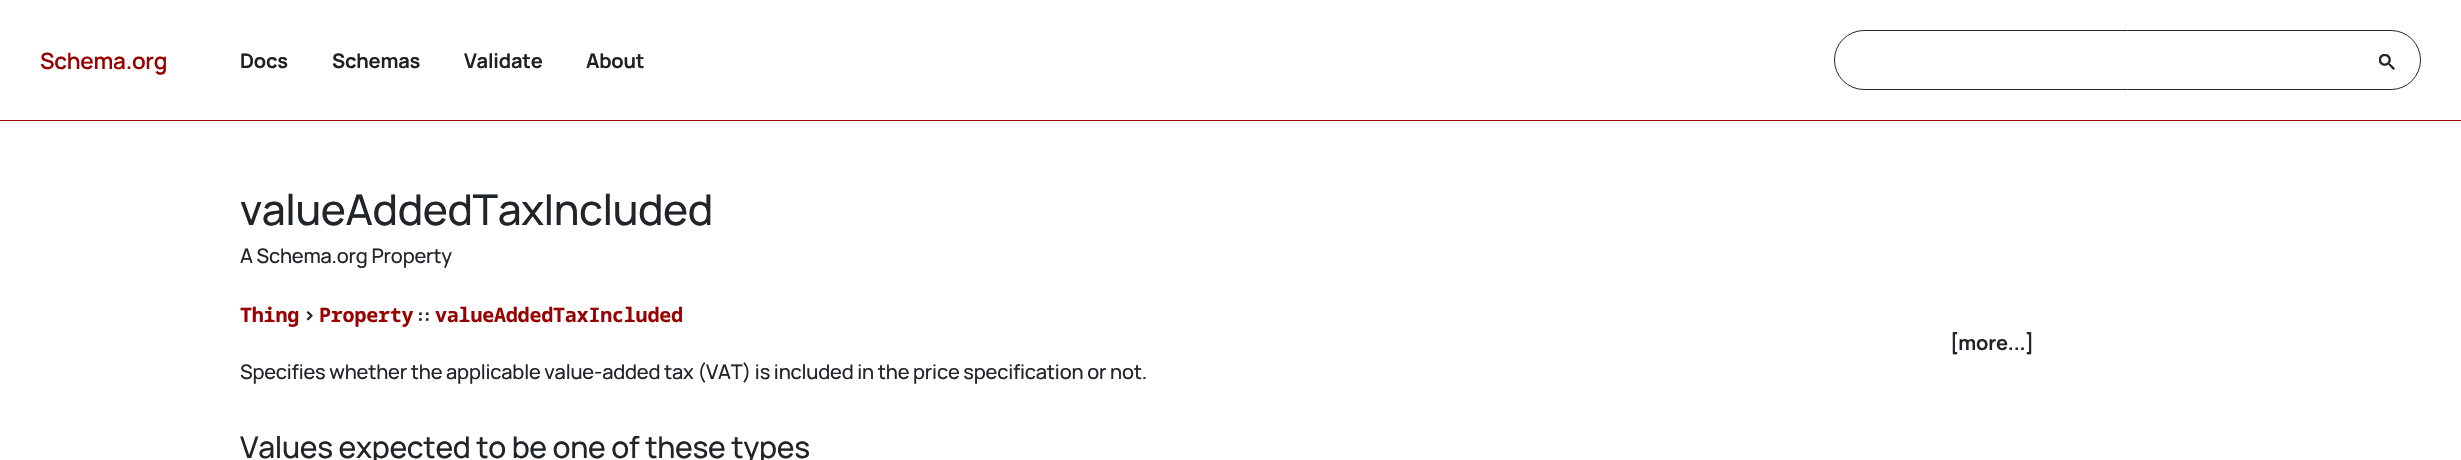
void draw(SkCanvas* canvas) {
    SkPaint paint;
    paint.setAntiAlias(true);
    auto face = [&](const char* family, int weight, float size, bool italic = false) {
        SkFontStyle style(weight, SkFontStyle::kNormal_Width,
            italic ? SkFontStyle::kItalic_Slant : SkFontStyle::kUpright_Slant);
        SkFont result(fontMgr->matchFamilyStyle(family, style), size);
        result.setSubpixel(true);
        return result;
    };
    auto writeSpaced = [&](const char* s, float x, float y, const SkFont& font, const SkPaint& ink, float letter, float word) {
        std::vector<SkGlyphID> glyphs(font.countText(s, strlen(s), SkTextEncoding::kUTF8));
        std::vector<float> xs(glyphs.size());
        font.textToGlyphs(s, strlen(s), SkTextEncoding::kUTF8, glyphs);
        font.getXPos(glyphs, xs, x);
        float extra = 0;
        for (size_t i = 0; i < glyphs.size(); i++) {
            xs[i] += extra;
            extra += letter + word * (glyphs[i] == font.unicharToGlyph(' '));
        }
        canvas->drawTextBlob(SkTextBlob::MakeFromPosHGlyphs(glyphs, xs, y, font), 0, 0, ink);
    };
    auto block = [&](float x, float y, float w, float h, SkColor color) {
        SkPaint ink(SkColor4f::FromColor(color));
        ink.setAntiAlias(true);
        canvas->drawRect(SkRect::MakeXYWH(x, y, w, h), ink);
    };
    auto paste = [&](const char* path, float x, float y, float w, float h) {
        auto image = SkImages::DeferredFromEncodedData(SkData::MakeFromFileName(path));
        canvas->drawImageRect(image, SkRect::MakeXYWH(x, y, w, h), SkSamplingOptions());
    };
    canvas->clear(SK_ColorWHITE);
    auto kFont1 = face("Manrope", 600, 22.5f);
    paint.setColor(SkColorSetRGB(153, 0, 0));
    writeSpaced("Schema.org", 40, 69, kFont1, paint, -0.25f, 0);
    auto kFont2 = face("Manrope", 700, 20);
    paint.setColor(SkColorSetRGB(32, 32, 32));
    writeSpaced("Docs", 240, 68, kFont2, paint, -0.2f, 0);
    writeSpaced("Schemas", 332, 68, kFont2, paint, -0.2f, 0);
    writeSpaced("Validate", 464, 68, kFont2, paint, -0.2f, 0);
    writeSpaced("About", 586, 68, kFont2, paint, -0.2f, 0);
    paint.setStyle(SkPaint::kStroke_Style);
    paint.setStrokeWidth(1);
    paint.setColor(SkColorSetRGB(33, 37, 41));
    canvas->drawRoundRect(SkRect::MakeXYWH(1834.5f, 30.5f, 586, 59), 29.5f, 29.5f, paint);
    paste("pic1.png", 2379, 54, 16, 16);
    block(0, 120, 2461, 1, SkColorSetRGB(153, 0, 0));
    auto kFont3 = face("Manrope", 500, 42.5f);
    paint.setStyle(SkPaint::kFill_Style);
    writeSpaced("valueAddedTaxIncluded", 240, 225, kFont3, paint, -0.4f, 0);
    auto kFont4 = face("Manrope", 500, 20);
    writeSpaced("A Schema.org Property", 240, 263, kFont4, paint, -0.2f, 0);
    auto kFont5 = face("Noto Sans Mono", 700, 20);
    paint.setColor(SkColorSetRGB(153, 0, 0));
    writeSpaced("Thing", 240, 322, kFont5, paint, -0.2f, 0);
    paint.setColor(SkColorSetRGB(33, 37, 41));
    writeSpaced(">", 303, 322, kFont2, paint, -0.2f, 0);
    paint.setColor(SkColorSetRGB(153, 0, 0));
    writeSpaced("Property", 319, 322, kFont5, paint, -0.2f, 0);
    paint.setColor(SkColorSetRGB(33, 37, 41));
    writeSpaced("::", 417, 322, kFont2, paint, -0.2f, 0);
    paint.setColor(SkColorSetRGB(153, 0, 0));
    writeSpaced("valueAddedTaxIncluded", 435, 322, kFont5, paint, -0.2f, 0);
    paint.setColor(SkColorSetRGB(33, 37, 41));
    writeSpaced("[more...]", 1950, 350, kFont2, paint, -0.2f, 0);
    writeSpaced("Specifies whether the applicable value-added tax (VAT) is included in the price specification or not.", 240, 379, kFont4, paint, -0.2f, 0);
    auto kFont6 = face("Manrope", 500, 30);
    writeSpaced("Values expected to be one of these types", 240, 458, kFont6, paint, -0.3f, 0);
}
